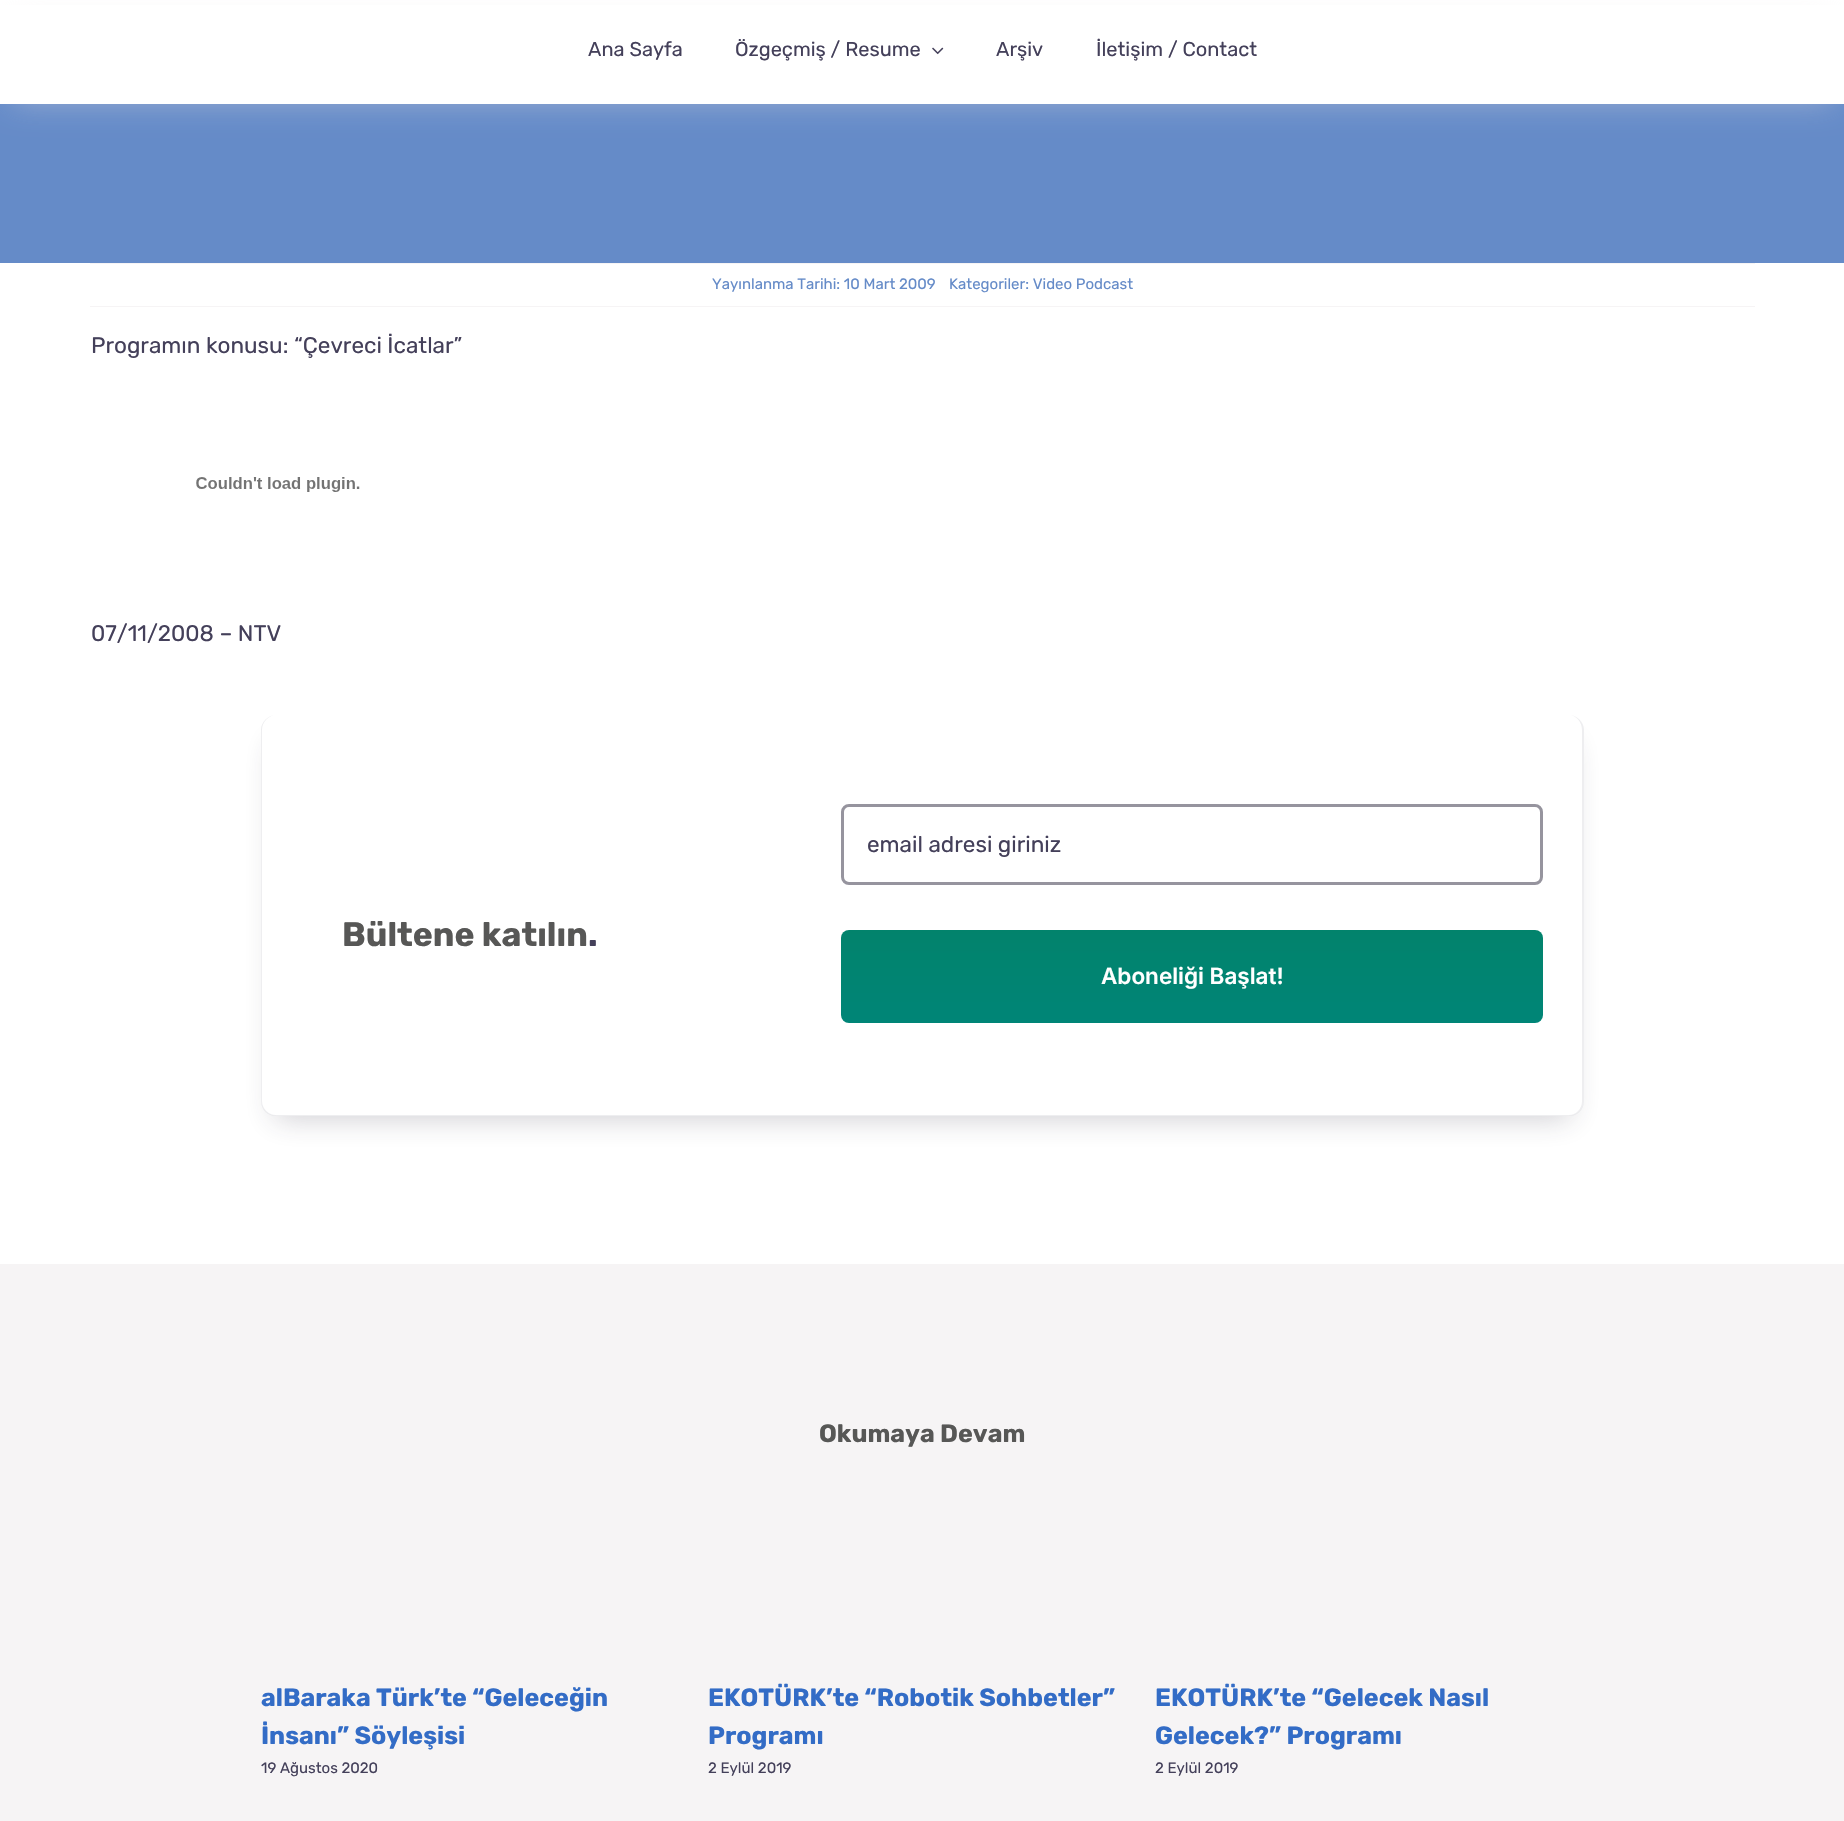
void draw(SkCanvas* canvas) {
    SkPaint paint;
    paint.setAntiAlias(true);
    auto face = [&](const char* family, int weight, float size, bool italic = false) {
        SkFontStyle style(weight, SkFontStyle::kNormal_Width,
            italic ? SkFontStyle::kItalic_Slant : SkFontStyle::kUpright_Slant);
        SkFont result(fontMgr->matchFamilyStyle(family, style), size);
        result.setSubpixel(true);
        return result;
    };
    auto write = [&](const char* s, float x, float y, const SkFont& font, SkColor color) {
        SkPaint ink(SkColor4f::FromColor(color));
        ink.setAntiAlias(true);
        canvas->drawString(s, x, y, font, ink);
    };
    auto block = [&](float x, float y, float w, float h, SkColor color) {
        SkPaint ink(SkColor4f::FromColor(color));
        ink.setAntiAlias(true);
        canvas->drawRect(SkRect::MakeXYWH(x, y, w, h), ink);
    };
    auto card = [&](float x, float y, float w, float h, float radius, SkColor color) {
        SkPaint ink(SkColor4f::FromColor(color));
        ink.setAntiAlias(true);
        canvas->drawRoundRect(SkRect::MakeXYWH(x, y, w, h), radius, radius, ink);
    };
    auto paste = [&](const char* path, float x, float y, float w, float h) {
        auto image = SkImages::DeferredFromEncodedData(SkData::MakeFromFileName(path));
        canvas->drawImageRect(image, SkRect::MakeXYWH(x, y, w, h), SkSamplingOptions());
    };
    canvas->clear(SK_ColorWHITE);
    block(0, 104, 1844, 159, SkColorSetRGB(101, 139, 200));
    paint.setColor(SkColorSetARGB(128, 234, 225, 228));
    paint.setMaskFilter(SkMaskFilter::MakeBlur(kNormal_SkBlurStyle, 16));
    canvas->drawRect(SkRect::MakeXYWH(13, 20, 1820, 79), paint);
    paint.setMaskFilter(nullptr);
    block(0, 5, 1844, 99, SK_ColorWHITE);
    auto kFont1 = face("Rubik", 400, 20);
    write("Ana Sayfa", 588, 56, kFont1, SkColorSetRGB(68, 64, 90));
    write("Özgeçmiş / Resume", 735, 56, kFont1, SkColorSetRGB(68, 64, 90));
    paste("pic1.png", 932, 47, 12, 8);
    write("Arşiv", 996, 56, kFont1, SkColorSetRGB(68, 64, 90));
    write("İletişim / Contact", 1096, 56, kFont1, SkColorSetRGB(68, 64, 90));
    block(90, 263, 1665, 1, SkColorSetRGB(246, 244, 245));
    block(90, 306, 1665, 1, SkColorSetRGB(246, 244, 245));
    auto kFont2 = face("Rubik", 400, 15);
    write("Yayınlanma Tarihi: 10 Mart 2009", 712, 289, kFont2, SkColorSetRGB(101, 139, 200));
    write("Kategoriler: Video Podcast", 949, 289, kFont2, SkColorSetRGB(101, 139, 200));
    auto kFont3 = face("Rubik", 400, 22.5f);
    write("Programın konusu: “Çevreci İcatlar”", 91, 353, kFont3, SkColorSetRGB(68, 64, 90));
    paste("pic2.png", 196, 477, 164, 15);
    write("07/11/2008 – NTV", 91, 641, kFont3, SkColorSetRGB(68, 64, 90));
    paint.setColor(SkColorSetARGB(61, 44, 41, 61));
    paint.setMaskFilter(SkMaskFilter::MakeBlur(kNormal_SkBlurStyle, 15));
    canvas->drawRoundRect(SkRect::MakeXYWH(275, 744, 1295, 374), 1, 1, paint);
    paint.setMaskFilter(nullptr);
    card(261, 715, 1323, 401, 15, SK_ColorWHITE);
    paint.setColor(SkColorSetARGB(20, 44, 41, 61));
    canvas->drawPath(SkPathBuilder(SkPathFillType::kEvenOdd).moveTo(276, 715).lineTo(1569, 715).cubicTo(1577, 715, 1584, 722, 1584, 730).lineTo(1584, 1101).cubicTo(1584, 1110, 1577, 1116, 1569, 1116).lineTo(276, 1116).cubicTo(268, 1116, 261, 1110, 261, 1101).lineTo(261, 730).cubicTo(261, 722, 268, 715, 276, 715).close().moveTo(276, 715).lineTo(1569, 715).cubicTo(1576, 715, 1582, 722, 1582, 730).lineTo(1582, 1101).cubicTo(1582, 1109, 1576, 1115, 1569, 1115).lineTo(276, 1115).cubicTo(269, 1115, 262, 1109, 262, 1101).lineTo(262, 730).cubicTo(262, 722, 269, 715, 276, 715).close().detach(), paint);
    auto kFont4 = face("Rubik", 700, 33.75f);
    write("Bültene katılın", 342, 946, kFont4, SkColorSetRGB(87, 87, 86));
    write(".", 588, 946, kFont4, SkColorSetRGB(68, 64, 90));
    paint.setStyle(SkPaint::kStroke_Style);
    paint.setStrokeWidth(3);
    paint.setColor(SkColorSetRGB(150, 148, 158));
    canvas->drawRoundRect(SkRect::MakeXYWH(842.5f, 805.5f, 699, 78), 6.5f, 6.5f, paint);
    write("email adresi giriniz", 867, 852, kFont3, SkColorSetRGB(68, 64, 90));
    paint.setStyle(SkPaint::kFill_Style);
    {
        const SkColor colors[] = {SkColorSetRGB(2, 131, 108), SkColorSetRGB(0, 133, 119)};
        const float stops[] = {0, 1};
        const SkPoint ends[] = {{1192, 930}, {1192, 1023}};
        paint.setShader(SkGradientShader::MakeLinear(ends, colors, stops, 2, SkTileMode::kClamp));
        paint.setAlpha(255);
    }
    canvas->drawRoundRect(SkRect::MakeXYWH(841, 930, 702, 93), 8, 8, paint);
    auto kFont5 = face("Inter", 600, 22.5f);
    write("Aboneliği Başlat!", 1101, 984, kFont5, SK_ColorWHITE);
    block(0, 1264, 1844, 557, SkColorSetRGB(246, 244, 245));
    auto kFont6 = face("Rubik", 700, 25);
    write("Okumaya Devam", 819, 1442, kFont6, SkColorSetRGB(87, 87, 86));
    write("alBaraka Türk’te “Geleceğin", 261, 1706, kFont6, SkColorSetRGB(51, 108, 198));
    write("İnsanı” Söyleşisi", 261, 1744, kFont6, SkColorSetRGB(51, 108, 198));
    write("19 Ağustos 2020", 261, 1773, kFont2, SkColorSetRGB(68, 64, 90));
    write("EKOTÜRK’te “Robotik Sohbetler”", 708, 1706, kFont6, SkColorSetRGB(51, 108, 198));
    write("Programı", 708, 1744, kFont6, SkColorSetRGB(51, 108, 198));
    write("2 Eylül 2019", 708, 1773, kFont2, SkColorSetRGB(68, 64, 90));
    write("EKOTÜRK’te “Gelecek Nasıl", 1155, 1706, kFont6, SkColorSetRGB(51, 108, 198));
    write("Gelecek?” Programı", 1155, 1744, kFont6, SkColorSetRGB(51, 108, 198));
    write("2 Eylül 2019", 1155, 1773, kFont2, SkColorSetRGB(68, 64, 90));
}
